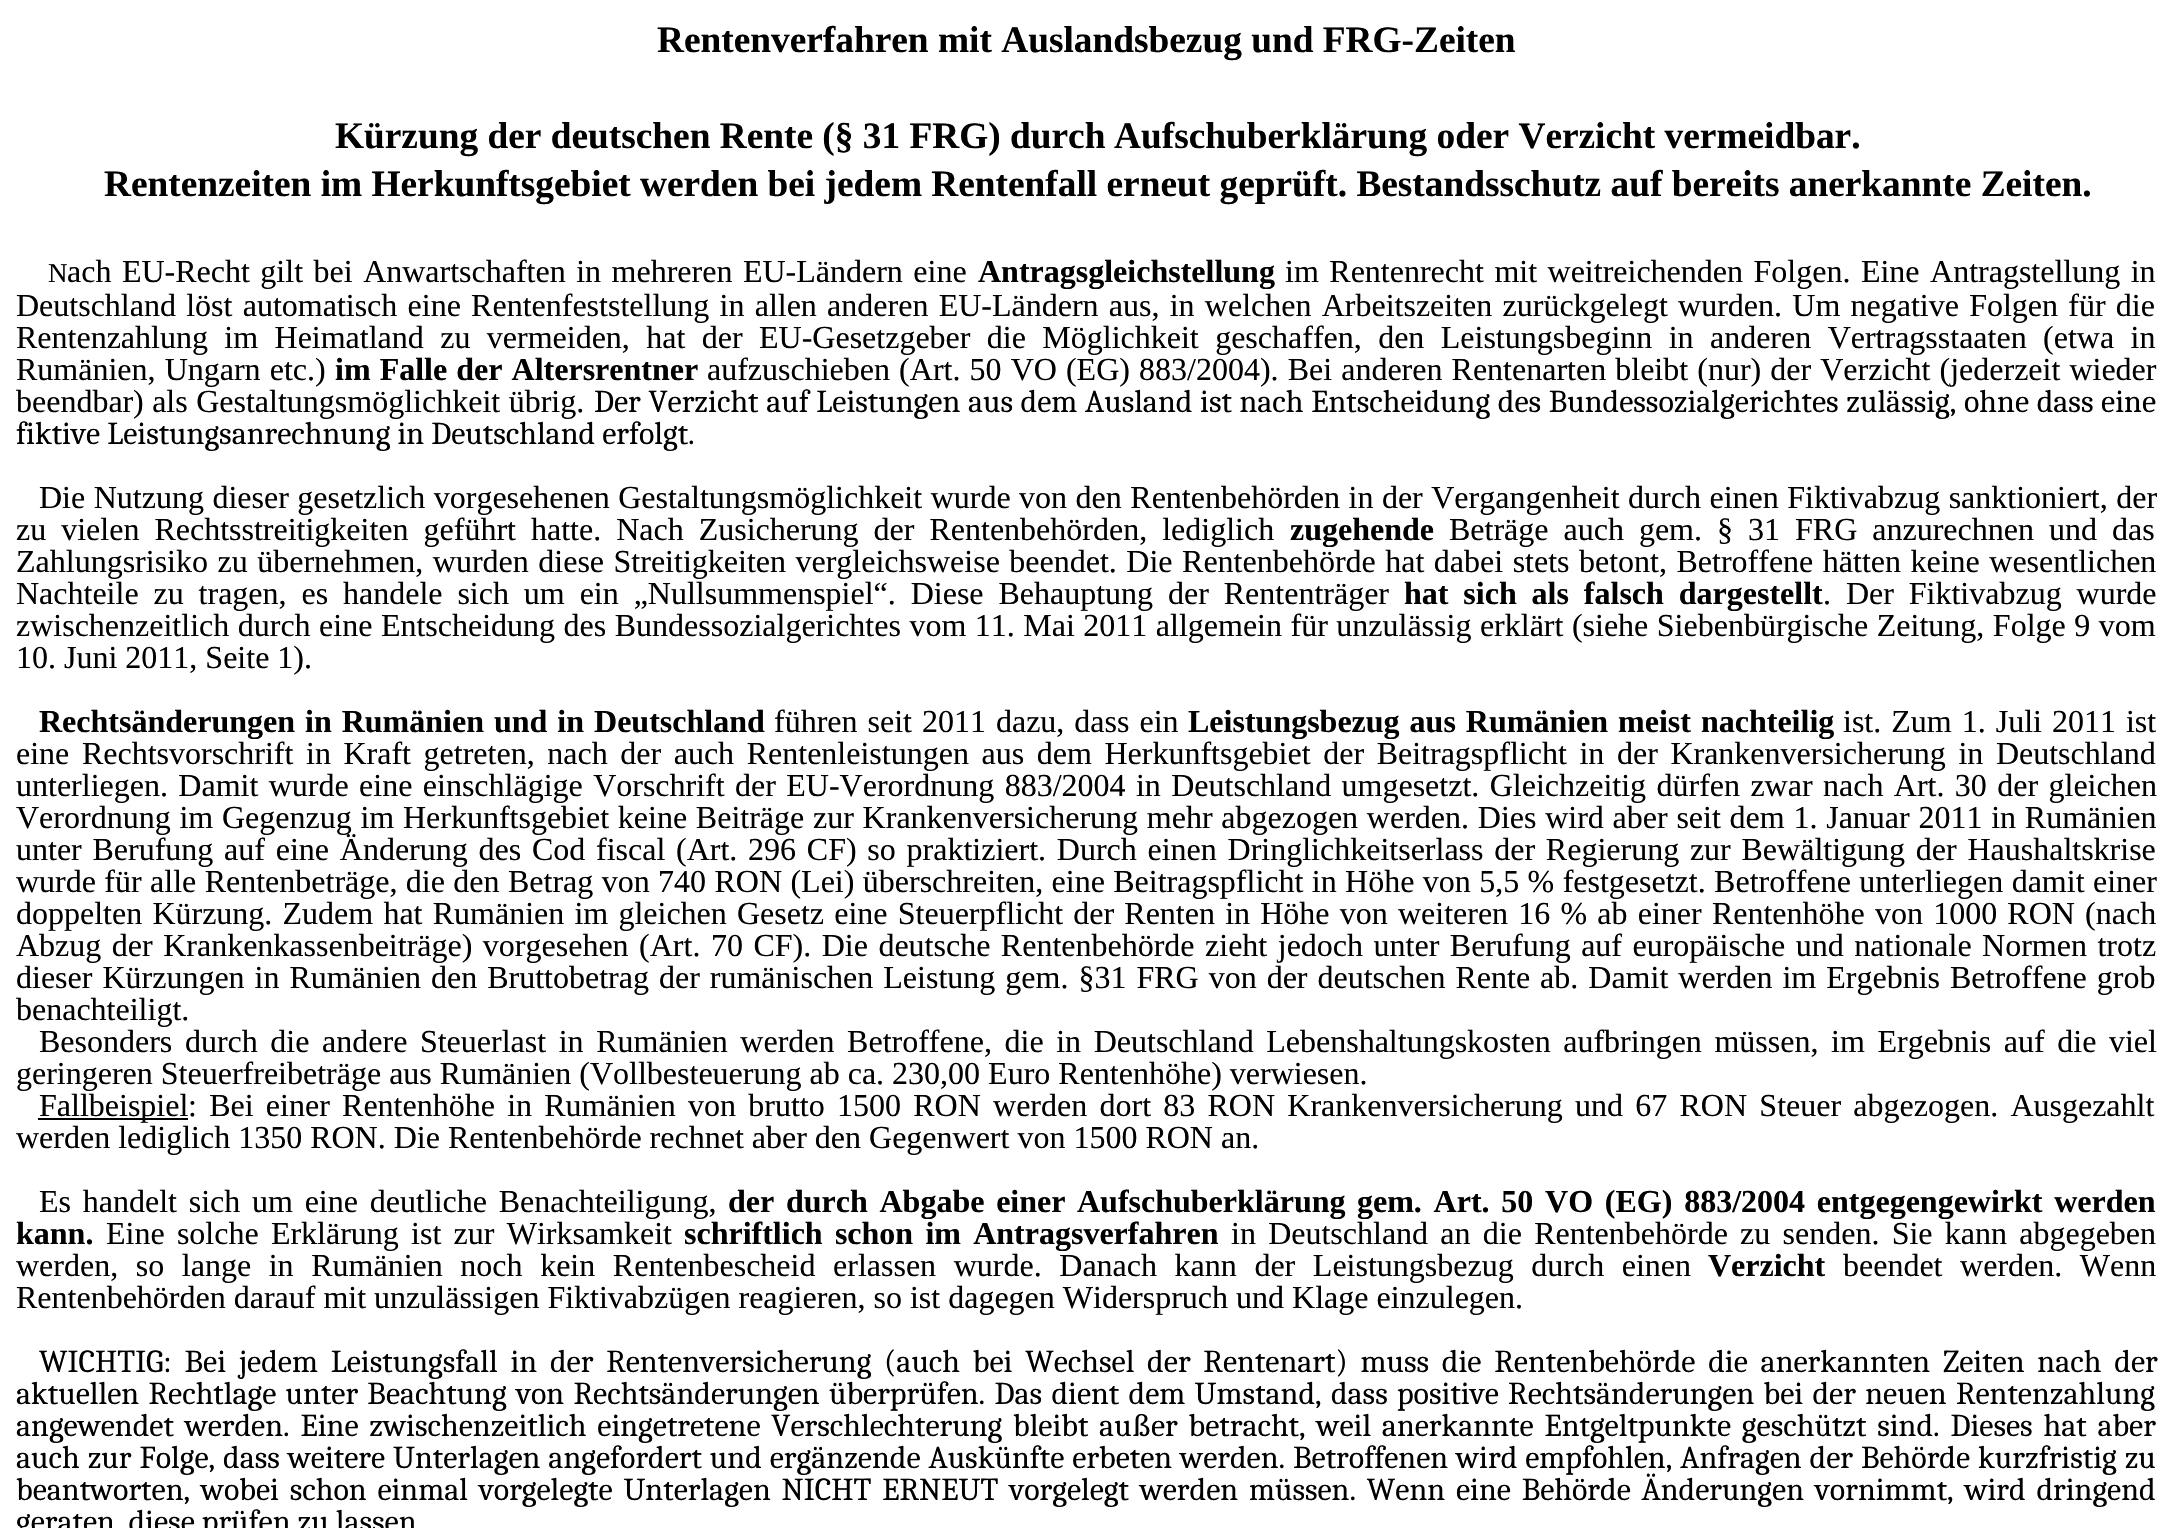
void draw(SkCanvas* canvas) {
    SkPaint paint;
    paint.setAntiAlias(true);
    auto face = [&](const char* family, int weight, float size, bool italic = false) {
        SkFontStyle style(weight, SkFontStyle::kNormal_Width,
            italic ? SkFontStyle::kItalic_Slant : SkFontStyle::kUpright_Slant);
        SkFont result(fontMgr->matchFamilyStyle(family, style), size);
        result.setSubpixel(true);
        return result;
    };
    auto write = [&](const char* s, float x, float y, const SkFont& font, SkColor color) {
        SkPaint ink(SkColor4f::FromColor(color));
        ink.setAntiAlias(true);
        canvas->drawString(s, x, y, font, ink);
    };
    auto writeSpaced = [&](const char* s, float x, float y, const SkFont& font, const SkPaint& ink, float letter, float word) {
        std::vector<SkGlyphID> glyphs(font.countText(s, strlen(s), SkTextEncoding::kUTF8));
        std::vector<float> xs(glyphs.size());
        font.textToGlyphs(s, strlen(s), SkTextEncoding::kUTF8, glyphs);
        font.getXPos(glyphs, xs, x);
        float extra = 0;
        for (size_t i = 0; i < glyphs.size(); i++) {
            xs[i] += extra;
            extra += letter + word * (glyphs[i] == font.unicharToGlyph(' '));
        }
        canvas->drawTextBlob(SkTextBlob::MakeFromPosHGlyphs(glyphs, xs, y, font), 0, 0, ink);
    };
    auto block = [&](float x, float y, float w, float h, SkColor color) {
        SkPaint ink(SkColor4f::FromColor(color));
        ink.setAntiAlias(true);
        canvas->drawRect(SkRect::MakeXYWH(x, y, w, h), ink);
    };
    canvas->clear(SK_ColorWHITE);
    auto kFont1 = face("Liberation Serif", 700, 37.33f);
    write("Rentenverfahren mit Auslandsbezug und FRG-Zeiten", 657, 52, kFont1, SK_ColorBLACK);
    write("Kürzung der deutschen Rente (§ 31 FRG) durch", 335, 148, kFont1, SK_ColorBLACK);
    write("Aufschuberklärung oder Verzicht vermeidbar.", 1114, 148, kFont1, SK_ColorBLACK);
    write("Rentenzeiten im Herkunftsgebiet werden bei jedem Rentenfall erneut geprüft. Bestandsschutz auf bereits anerkannte Zeiten.", 104, 196, kFont1, SK_ColorBLACK);
    auto kFont2 = face("Liberation Serif", 400, 27);
    write("N", 48, 282, kFont2, SK_ColorBLACK);
    auto kFont3 = face("Liberation Serif", 400, 32);
    paint.setColor(SK_ColorBLACK);
    writeSpaced("ach EU-Recht gilt bei Anwartschaften in mehreren EU-Ländern eine", 67, 282, kFont3, paint, 0, 2.5f);
    auto kFont4 = face("Liberation Serif", 700, 32);
    write("Antragsgleichstellung", 978, 282, kFont4, SK_ColorBLACK);
    writeSpaced("im Rentenrecht mit weitreichenden Folgen. Eine Antragstellung in", 1285, 282, kFont3, paint, 0, 2.5f);
    writeSpaced("Deutschland löst automatisch eine Rentenfeststellung in allen anderen EU-Ländern aus, in welchen Arbeitszeiten zurückgelegt wurden. Um negative Folgen für die", 16, 316, kFont3, paint, 0, 2.25f);
    writeSpaced("Rentenzahlung im Heimatland zu vermeiden, hat der EU-Gesetzgeber die Möglichkeit geschaffen, den Leistungsbeginn in anderen Vertragsstaaten (etwa in", 16, 348, kFont3, paint, 0, 8.4f);
    writeSpaced("Rumänien, Ungarn etc.)", 16, 380, kFont3, paint, 0, 1.1f);
    writeSpaced("im Falle der Altersrentner", 335, 380, kFont4, paint, 0, 1.1f);
    writeSpaced("aufzuschieben (Art. 50 VO (EG) 883/2004). Bei anderen Rentenarten bleibt (nur) der Verzicht (jederzeit wieder", 707, 380, kFont3, paint, 0, 1.1f);
    write("beendbar", 16, 412, kFont3, SK_ColorBLACK);
    writeSpaced(") als Gestaltungsmöglichkeit übrig.", 133, 412, kFont3, paint, 0, 0.5f);
    auto kFont5 = face("Caladea", 400, 32);
    writeSpaced("Der Verzicht auf Leistungen aus dem Ausland ist nach Entscheidung des Bundessozialgerichtes zulässig, ohne dass eine", 594, 412, kFont5, paint, 0, 0.6f);
    write("fiktive Leistungsanrechnung in Deutschland erfolgt.", 16, 444, kFont5, SK_ColorBLACK);
    writeSpaced("Die Nutzung dieser gesetzlich vorgesehenen Gestaltungsmöglichkeit wurde von den Rentenbehörden in der Vergangenheit durch einen Fiktivabzug sanktioniert, der", 39, 508, kFont3, paint, 0, 0.5f);
    writeSpaced("zu vielen Rechtsstreitigkeiten geführt hatte. Nach Zusicherung der Rentenbehörden, lediglich", 16, 540, kFont3, paint, 0, 7);
    write("zugehende", 1290, 540, kFont4, SK_ColorBLACK);
    writeSpaced("Beträge auch gem. § 31 FRG anzurechnen und das", 1449, 540, kFont3, paint, 0, 7);
    writeSpaced("Zahlungsrisiko zu übernehmen, wurden diese Streitigkeiten vergleichsweise beendet. Die Rentenbehörde hat dabei stets betont, Betroffene hätten keine wesentlichen", 16, 572, kFont3, paint, 0, 1.5f);
    writeSpaced("Nachteile zu tragen, es handele sich um ein „Nullsummenspiel“. Diese Behauptung der Rententräger", 16, 604, kFont3, paint, 0, 6.9f);
    writeSpaced("hat sich als falsch dargestellt", 1404, 604, kFont4, paint, 0, 6.9f);
    writeSpaced(". Der Fiktivabzug wurde", 1823, 604, kFont3, paint, 0, 6.9f);
    writeSpaced("zwischenzeitlich durch eine Entscheidung des Bundessozialgerichtes vom 11. Mai 2011 allgemein für unzulässig erklärt (siehe Siebenbürgische Zeitung, Folge 9 vom", 16, 636, kFont3, paint, 0, 0.5f);
    write("10. Juni 2011, Seite 1).", 16, 668, kFont3, SK_ColorBLACK);
    writeSpaced("Rechtsänderungen in Rumänien und in Deutschland", 39, 732, kFont4, paint, 0, 2);
    writeSpaced("führen seit 2011 dazu, dass ein", 774, 732, kFont3, paint, 0, 2);
    writeSpaced("Leistungsbezug aus Rumänien meist nachteilig", 1188, 732, kFont4, paint, 0, 2);
    writeSpaced("ist. Zum 1. Juli 2011 ist", 1843, 732, kFont3, paint, 0, 2);
    writeSpaced("eine Rechtsvorschrift in Kraft getreten, nach der auch Rentenleistungen aus dem Herkunftsgebiet der Beitragspflicht in der Krankenversicherung in Deutschland", 16, 764, kFont3, paint, 0, 4.6f);
    writeSpaced("unterliegen. Damit wurde eine einschlägige Vorschrift der EU-Verordnung 883/2004 in Deutschland umgesetzt. Gleichzeitig dürfen zwar nach Art. 30 der gleichen", 16, 796, kFont3, paint, 0, 2.4f);
    writeSpaced("Verordnung im Gegenzug im Herkunftsgebiet keine Beiträge zur Krankenversicherung mehr abgezogen werden. Dies wird aber seit dem 1. Januar 2011 in Rumänien", 16, 828, kFont3, paint, 0, 0.75f);
    writeSpaced("unter Berufung auf eine Änderung des", 16, 860, kFont3, paint, 0, 2.75f);
    write("Cod", 532, 860, kFont3, SK_ColorBLACK);
    write("fiscal", 596, 860, kFont3, SK_ColorBLACK);
    writeSpaced("(Art. 296 CF) so praktiziert. Durch einen Dringlichkeitserlass der Regierung zur Bewältigung der Haushaltskrise", 676, 860, kFont3, paint, 0, 2.75f);
    writeSpaced("wurde für alle Rentenbeträge, die den Betrag von 740 RON (Lei) überschreiten, eine Beitragspflicht in Höhe von 5,5 % festgesetzt. Betroffene unterliegen damit einer", 16, 892, kFont3, paint, 0, 0.4f);
    writeSpaced("doppelten Kürzung. Zudem hat Rumänien im gleichen Gesetz eine Steuerpflicht der Renten in Höhe von weiteren 16 % ab einer Rentenhöhe von 1000 RON (nach", 16, 924, kFont3, paint, 0, 2.2f);
    writeSpaced("Abzug der Krankenkassenbeiträge) vorgesehen (Art. 70 CF). Die deutsche Rentenbehörde zieht jedoch unter Berufung auf europäische und nationale Normen trotz", 16, 956, kFont3, paint, 0, 2.5f);
    writeSpaced("dieser Kürzungen in Rumänien den Bruttobetrag der rumänischen Leistung gem. §31 FRG von der deutschen Rente ab. Damit werden im Ergebnis Betroffene grob", 16, 988, kFont3, paint, 0, 2);
    write("benachteiligt.", 16, 1020, kFont3, SK_ColorBLACK);
    writeSpaced("Besonders durch die andere Steuerlast in Rumänien werden Betroffene, die in Deutschland Lebenshaltungskosten aufbringen müssen, im Ergebnis auf die viel", 39, 1052, kFont3, paint, 0, 4.6f);
    write("geringeren Steuerfreibeträge aus Rumänien (Vollbesteuerung ab ca. 230,00 Euro Rentenhöhe) verwiesen.", 16, 1084, kFont3, SK_ColorBLACK);
    block(38, 1118, 150, 2, SK_ColorBLACK);
    write("Fallbeispiel", 39, 1116, kFont3, SK_ColorBLACK);
    writeSpaced(": Bei einer Rentenhöhe in Rumänien von brutto 1500 RON werden dort 83 RON Krankenversicherung und 67 RON Steuer abgezogen. Ausgezahlt", 188, 1116, kFont3, paint, 0, 4.25f);
    write("werden lediglich 1350 RON. Die Rentenbehörde rechnet aber den Gegenwert von 1500 RON an.", 16, 1148, kFont3, SK_ColorBLACK);
    writeSpaced("Es handelt sich um eine deutliche Benachteiligung,", 39, 1212, kFont3, paint, 0, 3.75f);
    writeSpaced("der durch Abgabe einer", 728, 1212, kFont4, paint, 0, 3.75f);
    write("Aufschuberklärung", 1077, 1212, kFont4, SK_ColorBLACK);
    writeSpaced("gem. Art. 50 VO (EG) 883/2004 entgegengewirkt werden", 1357, 1212, kFont4, paint, 0, 3.75f);
    write("kann.", 16, 1244, kFont4, SK_ColorBLACK);
    writeSpaced("Eine solche Erklärung ist zur Wirksamkeit", 106, 1244, kFont3, paint, 0, 4.25f);
    writeSpaced("schriftlich schon im Antragsverfahren", 684, 1244, kFont4, paint, 0, 4.25f);
    writeSpaced("in Deutschland an die Rentenbehörde zu senden. Sie kann abgegeben", 1231, 1244, kFont3, paint, 0, 4.25f);
    writeSpaced("werden, so lange in Rumänien noch kein Rentenbescheid erlassen wurde. Danach kann der Leistungsbezug durch einen", 16, 1276, kFont3, paint, 0, 9.6f);
    write("Verzicht", 1708, 1276, kFont4, SK_ColorBLACK);
    writeSpaced("beendet werden. Wenn", 1843, 1276, kFont3, paint, 0, 9.6f);
    write("Rentenbehörden darauf mit unzulässigen Fiktivabzügen reagieren, so ist dagegen Widerspruch und Klage einzulegen.", 16, 1308, kFont3, SK_ColorBLACK);
    writeSpaced("WICHTIG: Bei jedem Leistungsfall in der Rentenversicherung (auch bei Wechsel der Rentenart) muss die Rentenbehörde die anerkannten Zeiten nach der", 39, 1372, kFont5, paint, 0, 5.75f);
    writeSpaced("aktuellen Rechtlage unter Beachtung von Rechtsänderungen überprüfen. Das dient dem Umstand, dass positive Rechtsänderungen bei der neuen Rentenzahlung", 16, 1404, kFont5, paint, 0, 2.25f);
    writeSpaced("angewendet werden. Eine zwischenzeitlich eingetretene Verschlechterung bleibt außer betracht, weil anerkannte Entgeltpunkte geschützt sind. Dieses hat aber", 16, 1436, kFont5, paint, 0, 3.75f);
    writeSpaced("auch zur Folge, dass weitere Unterlagen angefordert und ergänzende Auskünfte erbeten werden. Betroffenen wird empfohlen, Anfragen der Behörde kurzfristig zu", 16, 1468, kFont5, paint, 0, 0.9f);
    writeSpaced("beantworten, wobei schon einmal vorgelegte Unterlagen NICHT ERNEUT vorgelegt werden müssen. Wenn eine Behörde Änderungen vornimmt, wird dringend", 16, 1500, kFont5, paint, 0, 3.75f);
    write("geraten, diese prüfen zu lassen", 16, 1532, kFont5, SK_ColorBLACK);
}
